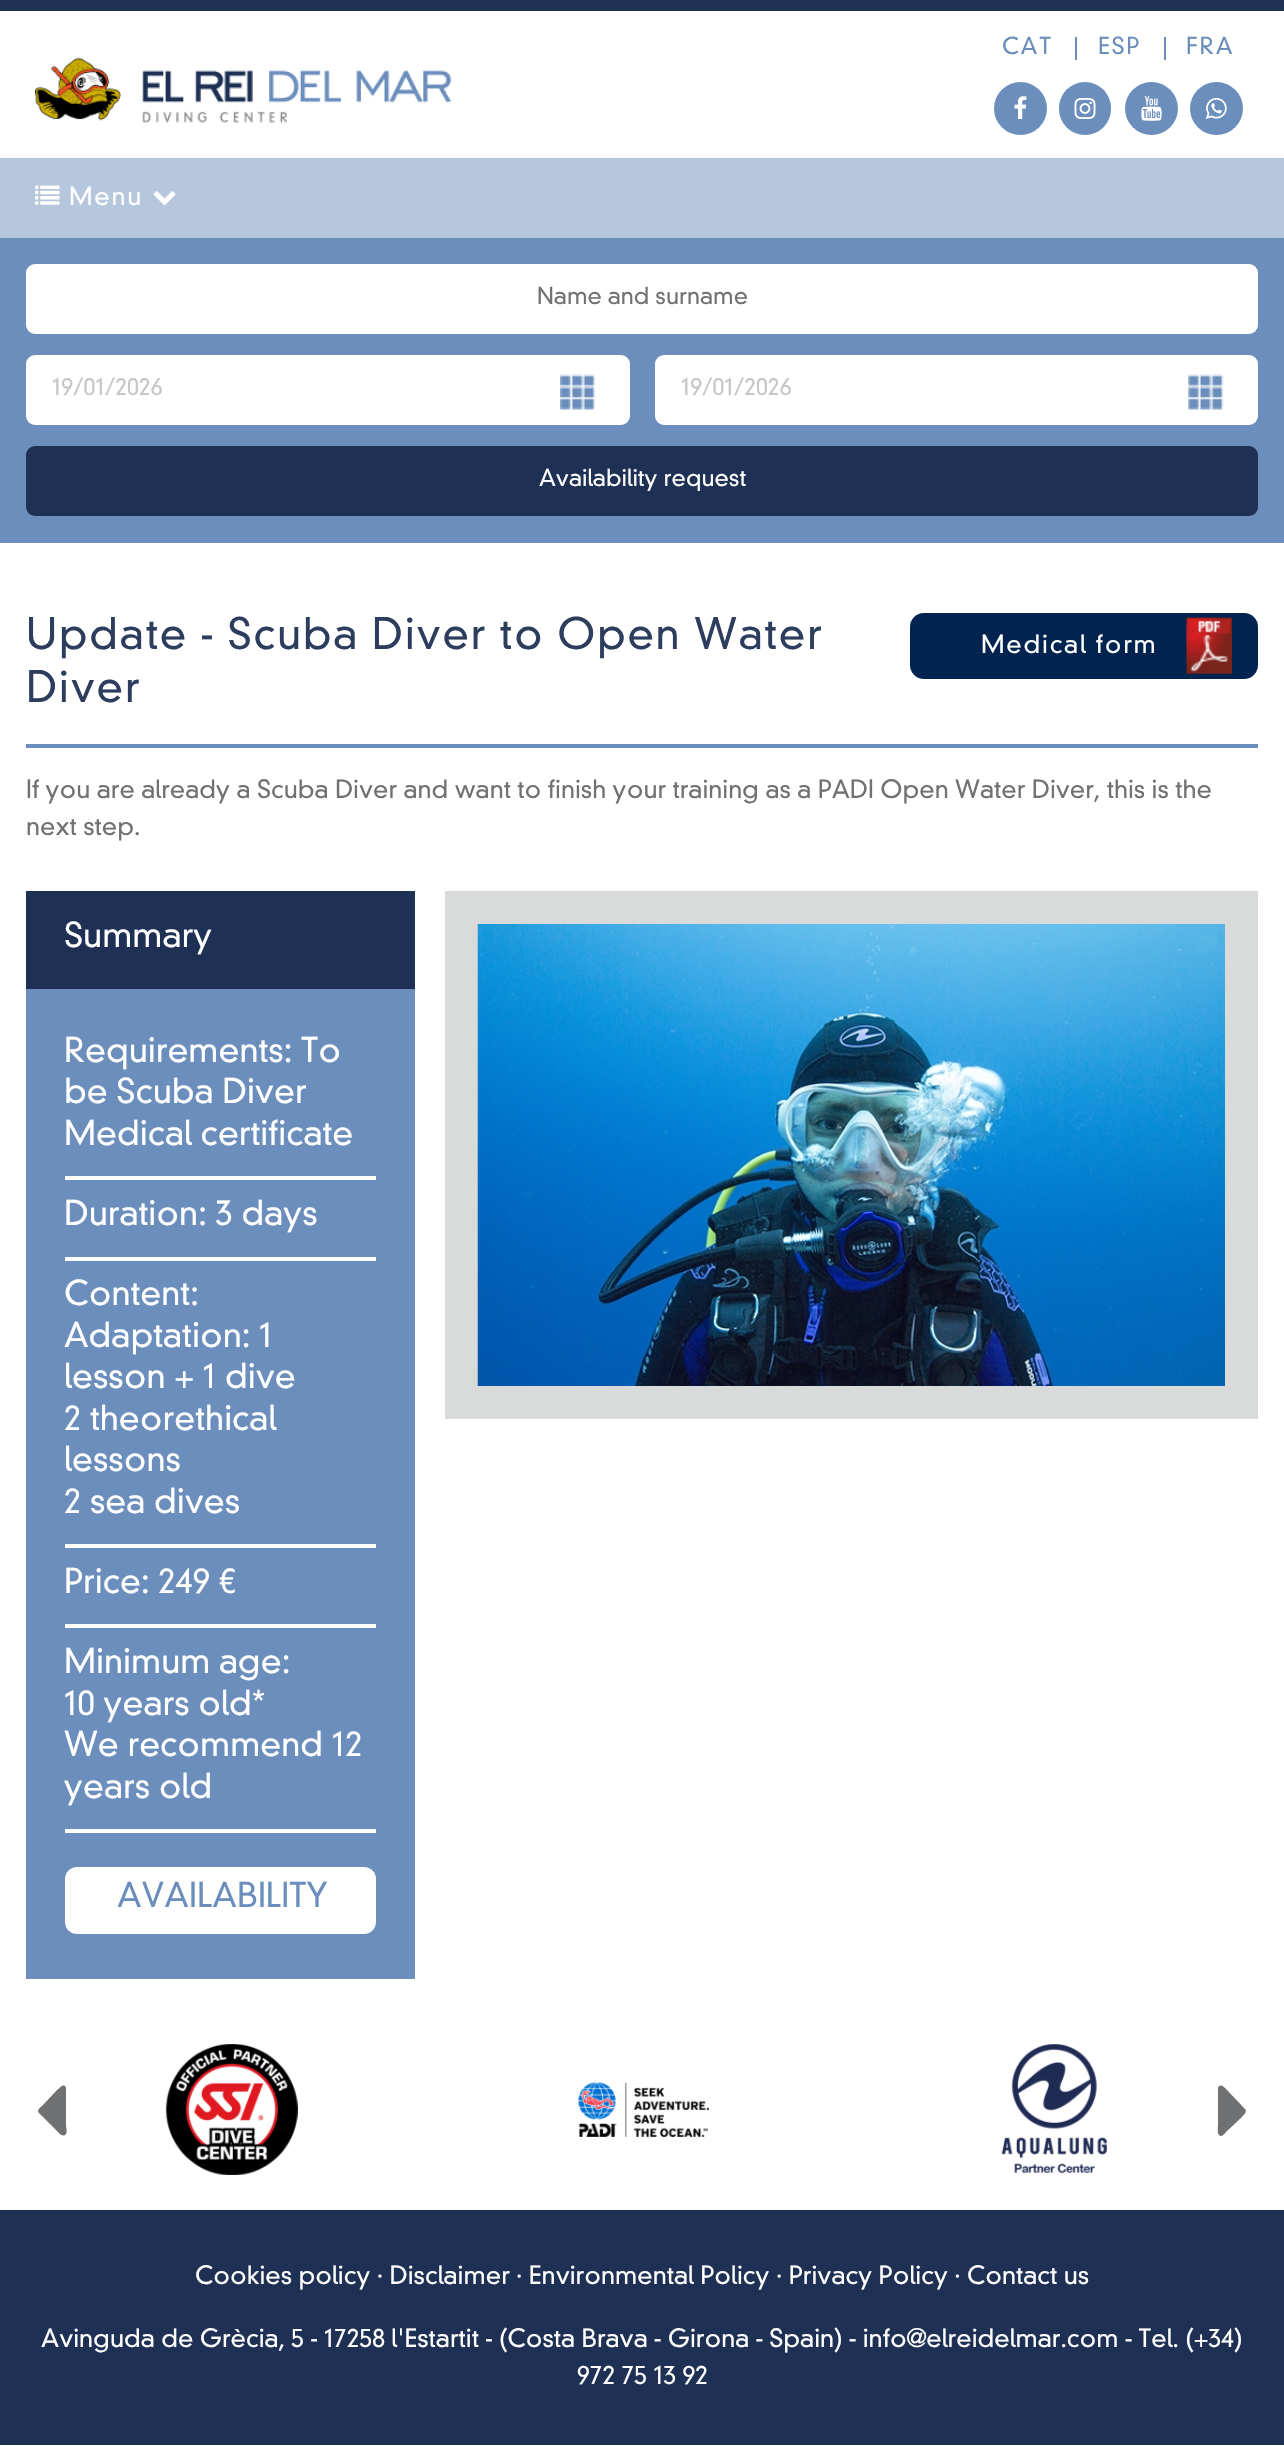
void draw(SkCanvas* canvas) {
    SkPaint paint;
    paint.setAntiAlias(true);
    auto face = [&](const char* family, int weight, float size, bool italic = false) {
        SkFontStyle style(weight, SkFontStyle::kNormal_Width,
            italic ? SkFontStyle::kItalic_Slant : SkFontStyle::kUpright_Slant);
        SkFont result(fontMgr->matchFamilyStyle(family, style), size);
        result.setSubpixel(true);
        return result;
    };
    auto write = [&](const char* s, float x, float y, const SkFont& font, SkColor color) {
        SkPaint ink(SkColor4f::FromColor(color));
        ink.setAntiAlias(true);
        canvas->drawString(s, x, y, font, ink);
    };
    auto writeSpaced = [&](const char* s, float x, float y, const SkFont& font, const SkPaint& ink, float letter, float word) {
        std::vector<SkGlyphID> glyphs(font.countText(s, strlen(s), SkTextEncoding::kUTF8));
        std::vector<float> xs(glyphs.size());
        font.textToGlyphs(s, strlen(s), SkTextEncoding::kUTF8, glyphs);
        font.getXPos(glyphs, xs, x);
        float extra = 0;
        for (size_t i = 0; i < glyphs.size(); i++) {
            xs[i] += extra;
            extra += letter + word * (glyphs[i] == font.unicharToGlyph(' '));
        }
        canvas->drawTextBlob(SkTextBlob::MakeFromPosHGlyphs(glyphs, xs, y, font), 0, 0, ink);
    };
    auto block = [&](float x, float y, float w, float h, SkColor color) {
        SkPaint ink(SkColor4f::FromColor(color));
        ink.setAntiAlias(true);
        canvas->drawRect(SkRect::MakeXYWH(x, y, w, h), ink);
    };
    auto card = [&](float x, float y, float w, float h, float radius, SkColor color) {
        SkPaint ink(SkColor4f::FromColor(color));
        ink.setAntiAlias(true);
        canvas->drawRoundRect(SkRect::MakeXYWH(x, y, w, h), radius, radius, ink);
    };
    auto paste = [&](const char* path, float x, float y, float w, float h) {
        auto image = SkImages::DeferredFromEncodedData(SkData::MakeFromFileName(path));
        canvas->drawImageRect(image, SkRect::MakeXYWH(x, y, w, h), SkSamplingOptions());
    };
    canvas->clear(SK_ColorWHITE);
    block(0, 0, 1284, 11, SkColorSetRGB(30, 48, 83));
    auto kFont1 = face("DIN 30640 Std", 300, 22.75f);
    paint.setColor(SkColorSetRGB(107, 142, 188));
    writeSpaced("CAT", 1002, 54, kFont1, paint, 1.75f, 0);
    writeSpaced("ESP", 1098, 54, kFont1, paint, 1.75f, 0);
    block(1075, 37, 2, 23, SkColorSetRGB(107, 142, 188));
    writeSpaced("FRA", 1186, 54, kFont1, paint, 1.75f, 0);
    block(1164, 37, 2, 23, SkColorSetRGB(107, 142, 188));
    canvas->drawCircle(1020.5f, 108.5f, 26.5f, paint);
    paste("pic1.png", 1014, 96, 13, 23);
    card(1059, 82, 52, 53, 26, SkColorSetRGB(107, 142, 188));
    paste("pic2.png", 1074, 98, 22, 21);
    canvas->drawCircle(1151.5f, 108.5f, 26.5f, paint);
    paste("pic3.png", 1141, 96, 21, 25);
    canvas->drawCircle(1216.5f, 108.5f, 26.5f, paint);
    paste("pic4.png", 1205, 97, 22, 22);
    paste("pic5.png", 35, 57, 417, 66);
    block(0, 158, 1284, 80, SkColorSetRGB(181, 198, 221));
    paste("pic6.png", 35, 185, 25, 20);
    auto kFont2 = face("DIN 30640 Std", 300, 24.5f);
    paint.setColor(SK_ColorWHITE);
    writeSpaced("Menu", 69, 205, kFont2, paint, 1.75f, 0);
    paste("pic7.png", 153, 191, 23, 15);
    block(0, 238, 1284, 305, SkColorSetRGB(107, 142, 188));
    card(26, 264, 1232, 70, 9, SK_ColorWHITE);
    write("Name and surname", 537, 304, kFont1, SkColorSetRGB(112, 113, 114));
    card(26, 355, 604, 70, 9, SK_ColorWHITE);
    write("19/01/2026", 52, 395, kFont1, SkColorSetRGB(197, 198, 198));
    paste("pic8.png", 560, 374, 35, 36);
    card(655, 355, 603, 70, 9, SK_ColorWHITE);
    write("19/01/2026", 681, 395, kFont1, SkColorSetRGB(197, 198, 198));
    paste("pic9.png", 1188, 374, 36, 36);
    card(26, 446, 1232, 70, 9, SkColorSetRGB(30, 48, 83));
    write("Availability request", 539, 486, kFont1, SK_ColorWHITE);
    block(26, 744, 1232, 4, SkColorSetRGB(107, 142, 188));
    auto kFont3 = face("DIN 30640 Std", 300, 42);
    paint.setColor(SkColorSetRGB(44, 61, 94));
    writeSpaced("Update - Scuba Diver to Open Water", 26, 649, kFont3, paint, 1.75f, 0);
    writeSpaced("Diver", 26, 702, kFont3, paint, 1.75f, 0);
    card(910, 613, 348, 66, 14, SkColorSetRGB(0, 36, 79));
    paint.setColor(SK_ColorWHITE);
    writeSpaced("Medical form", 981, 653, kFont2, paint, 1.75f, 0);
    paste("pic10.png", 1186, 617, 46, 57);
    write("If you are already a Scuba Diver and want to finish your training as a PADI Open Water Diver, this is the", 26, 798, kFont2, SkColorSetRGB(112, 113, 114));
    write("next step.", 26, 835, kFont2, SkColorSetRGB(112, 113, 114));
    block(26, 989, 389, 990, SkColorSetRGB(107, 142, 188));
    block(26, 891, 389, 98, SkColorSetRGB(30, 48, 83));
    auto kFont4 = face("DIN 30640 Std", 300, 33.25f);
    write("Summary", 64, 947, kFont4, SK_ColorWHITE);
    block(65, 1176, 311, 4, SK_ColorWHITE);
    write("Requirements: To", 64, 1062, kFont4, SK_ColorWHITE);
    write("be Scuba Diver", 64, 1103, kFont4, SK_ColorWHITE);
    write("Medical certificate", 64, 1145, kFont4, SK_ColorWHITE);
    block(65, 1257, 311, 4, SK_ColorWHITE);
    write("Duration: 3 days", 64, 1225, kFont4, SK_ColorWHITE);
    block(65, 1544, 311, 4, SK_ColorWHITE);
    write("Content:", 64, 1305, kFont4, SK_ColorWHITE);
    write("Adaptation: 1", 64, 1347, kFont4, SK_ColorWHITE);
    write("lesson + 1 dive", 64, 1388, kFont4, SK_ColorWHITE);
    write("2 theorethical", 64, 1430, kFont4, SK_ColorWHITE);
    write("lessons", 64, 1471, kFont4, SK_ColorWHITE);
    write("2 sea dives", 64, 1513, kFont4, SK_ColorWHITE);
    block(65, 1624, 311, 4, SK_ColorWHITE);
    write("Price: 249 €", 64, 1593, kFont4, SK_ColorWHITE);
    block(65, 1829, 311, 4, SK_ColorWHITE);
    write("Minimum age:", 64, 1673, kFont4, SK_ColorWHITE);
    write("10 years old*", 64, 1715, kFont4, SK_ColorWHITE);
    write("We recommend 12", 64, 1756, kFont4, SK_ColorWHITE);
    write("years old", 64, 1798, kFont4, SK_ColorWHITE);
    card(65, 1867, 311, 67, 12, SK_ColorWHITE);
    write("AVAILABILITY", 117, 1907, kFont4, SkColorSetRGB(107, 142, 188));
    paint.setStyle(SkPaint::kStroke_Style);
    paint.setStrokeWidth(33);
    paint.setColor(SkColorSetRGB(217, 218, 218));
    canvas->drawRect(SkRect::MakeXYWH(461.5f, 907.5f, 780, 495), paint);
    paste("pic11.png", 477, 924, 748, 462);
    paste("pic12.png", 165, 2044, 133, 131);
    paste("pic13.png", 577, 2081, 132, 56);
    paste("pic14.png", 1001, 2044, 106, 130);
    paint.setStyle(SkPaint::kFill_Style);
    paint.setColor(SkColorSetRGB(112, 113, 114));
    canvas->drawPath(SkPathBuilder().moveTo(66, 2089).lineTo(66, 2125).cubicTo(66, 2127, 68, 2134, 65, 2135).cubicTo(62, 2137, 59, 2133, 57, 2131).lineTo(39, 2113).cubicTo(36, 2110, 41, 2107, 43, 2105).lineTo(57, 2090).cubicTo(59, 2089, 62, 2084, 65, 2086).cubicTo(66, 2087, 66, 2088, 66, 2089).close().detach(), paint);
    canvas->drawPath(SkPathBuilder().moveTo(1245, 2109).cubicTo(1248, 2112, 1243, 2115, 1242, 2117).lineTo(1227, 2131).cubicTo(1225, 2133, 1222, 2138, 1219, 2135).cubicTo(1217, 2133, 1218, 2126, 1218, 2125).lineTo(1218, 2088).cubicTo(1220, 2082, 1226, 2089, 1227, 2090).close().detach(), paint);
    block(0, 2210, 1284, 235, SkColorSetRGB(30, 48, 83));
    write("Cookies policy · Disclaimer · Environmental Policy · Privacy Policy · Contact us", 195, 2284, kFont2, SK_ColorWHITE);
    write("Avinguda de Grècia, 5 - 17258 l'Estartit - (Costa Brava - Girona - Spain) - info@elreidelmar.com - Tel. (+34)", 41, 2347, kFont2, SK_ColorWHITE);
    write("972 75 13 92", 577, 2384, kFont2, SK_ColorWHITE);
}
